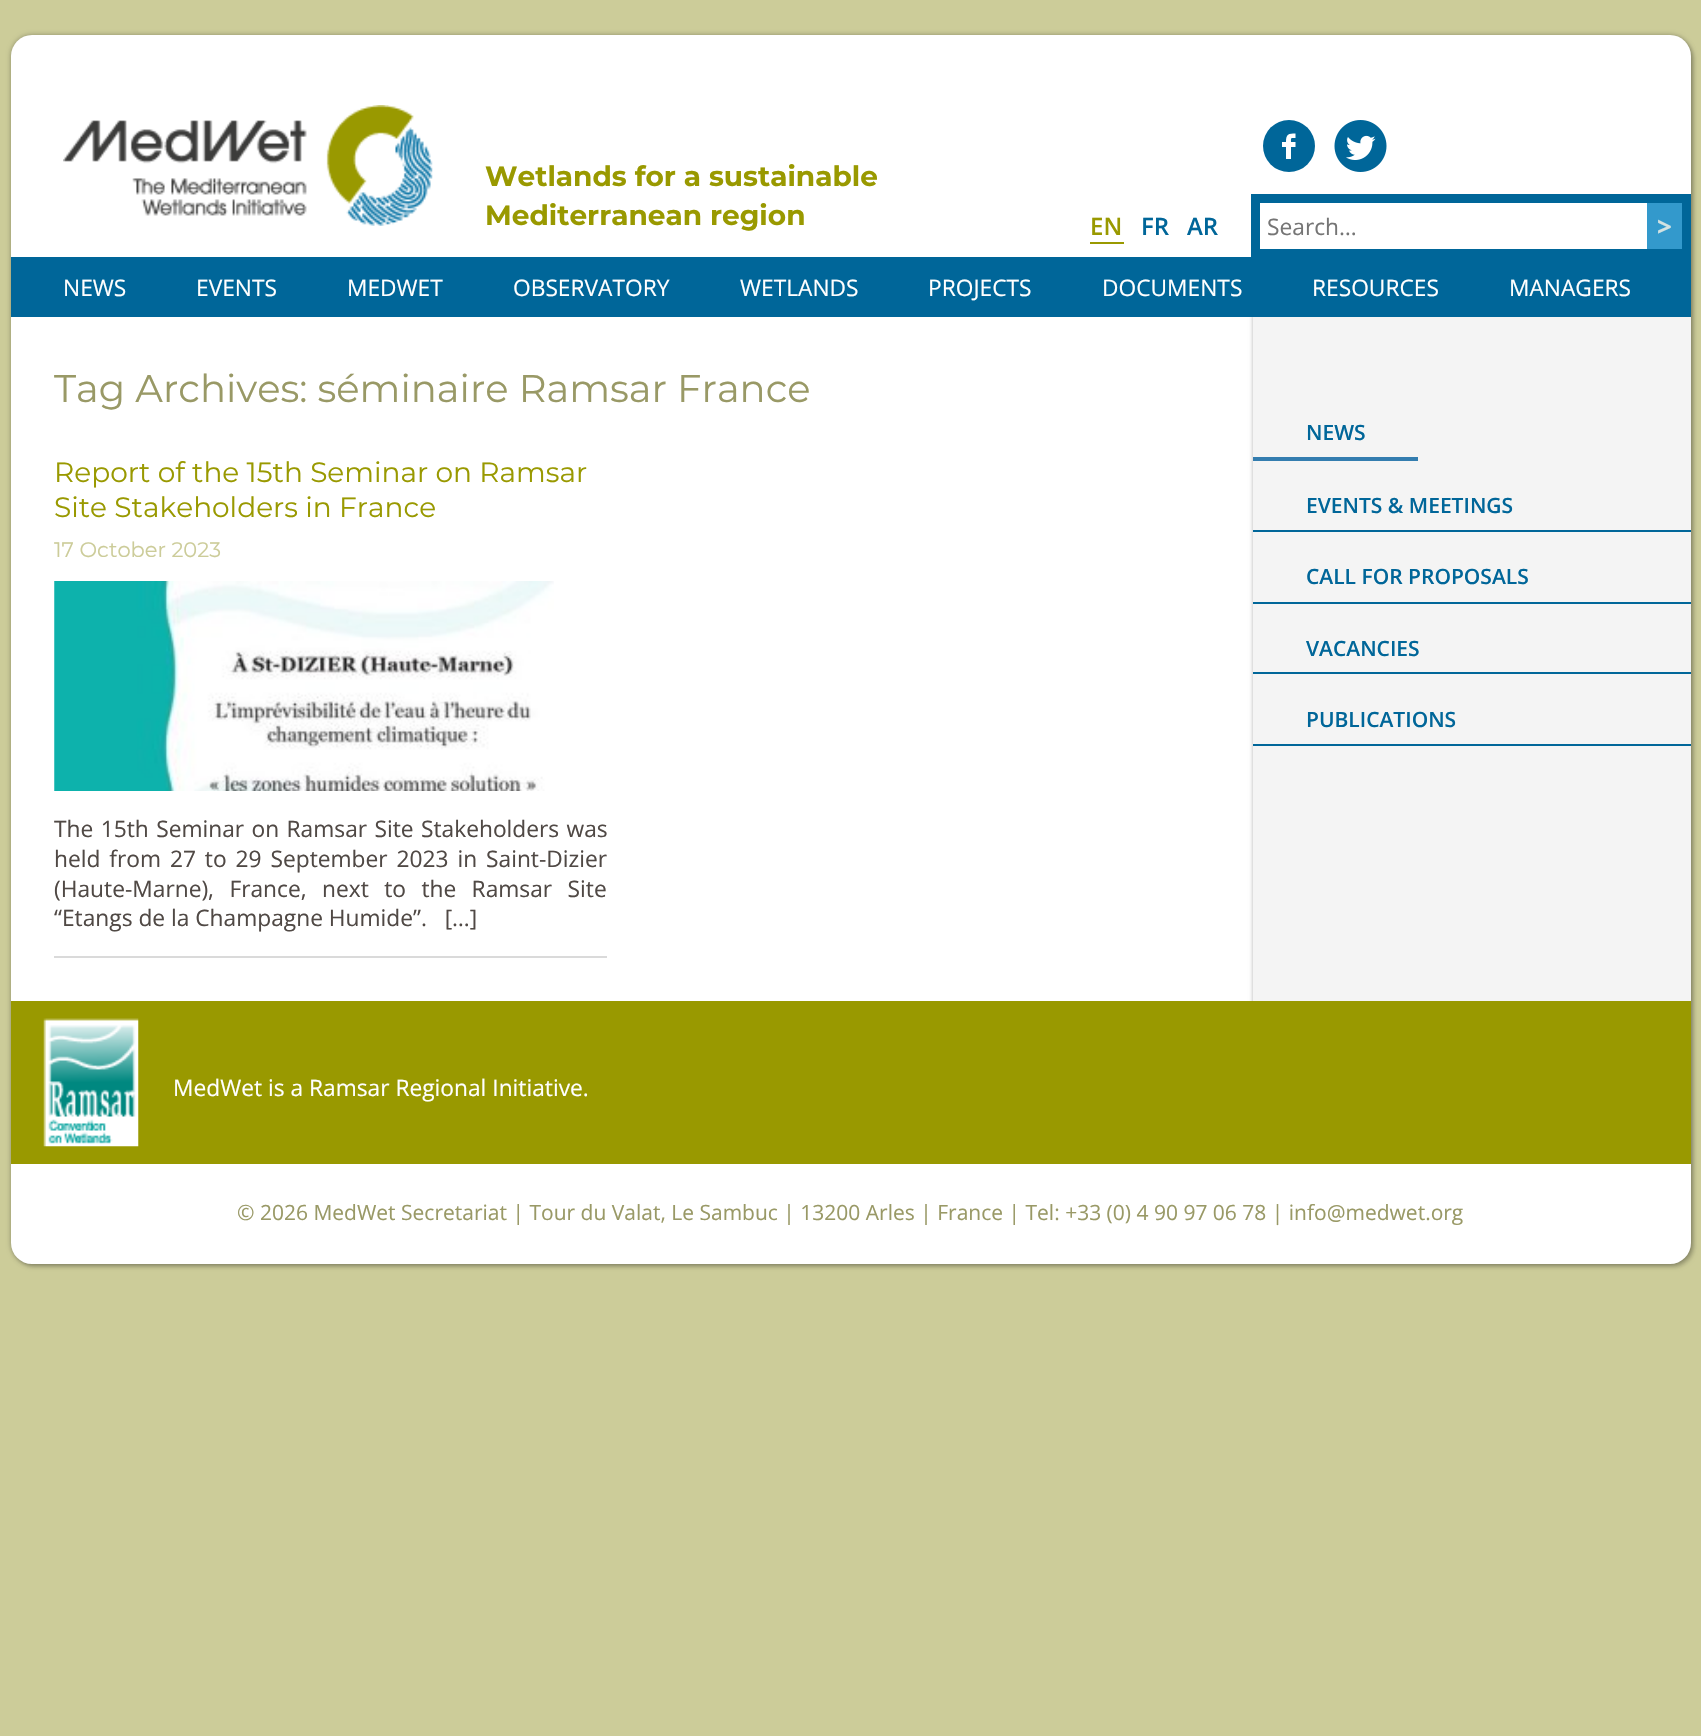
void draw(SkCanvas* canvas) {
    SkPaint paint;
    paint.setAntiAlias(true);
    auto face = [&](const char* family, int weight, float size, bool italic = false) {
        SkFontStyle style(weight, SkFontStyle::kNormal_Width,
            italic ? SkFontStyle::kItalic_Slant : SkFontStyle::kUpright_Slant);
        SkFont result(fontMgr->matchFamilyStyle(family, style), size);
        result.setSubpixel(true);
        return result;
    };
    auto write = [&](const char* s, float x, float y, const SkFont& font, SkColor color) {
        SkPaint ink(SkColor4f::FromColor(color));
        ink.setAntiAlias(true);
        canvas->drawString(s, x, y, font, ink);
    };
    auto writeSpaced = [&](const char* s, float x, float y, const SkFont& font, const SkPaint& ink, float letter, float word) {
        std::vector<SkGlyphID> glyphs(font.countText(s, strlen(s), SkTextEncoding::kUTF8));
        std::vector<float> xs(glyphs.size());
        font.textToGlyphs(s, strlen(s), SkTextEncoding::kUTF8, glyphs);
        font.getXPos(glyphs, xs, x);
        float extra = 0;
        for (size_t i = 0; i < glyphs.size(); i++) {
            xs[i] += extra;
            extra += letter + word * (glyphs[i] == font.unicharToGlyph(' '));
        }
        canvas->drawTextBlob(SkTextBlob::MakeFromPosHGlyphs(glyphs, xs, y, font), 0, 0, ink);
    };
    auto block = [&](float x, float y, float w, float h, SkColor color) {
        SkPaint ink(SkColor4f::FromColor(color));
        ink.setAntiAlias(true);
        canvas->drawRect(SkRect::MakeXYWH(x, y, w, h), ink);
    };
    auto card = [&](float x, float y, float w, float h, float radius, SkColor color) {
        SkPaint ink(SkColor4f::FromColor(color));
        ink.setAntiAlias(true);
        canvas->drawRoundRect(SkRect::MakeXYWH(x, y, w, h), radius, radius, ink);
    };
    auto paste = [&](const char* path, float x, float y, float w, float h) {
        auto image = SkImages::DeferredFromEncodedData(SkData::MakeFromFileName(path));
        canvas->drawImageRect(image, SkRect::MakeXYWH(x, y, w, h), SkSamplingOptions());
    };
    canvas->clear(SkColorSetRGB(204, 204, 153));
    paint.setColor(SkColorSetARGB(51, 0, 0, 0));
    paint.setMaskFilter(SkMaskFilter::MakeBlur(kNormal_SkBlurStyle, 2));
    canvas->drawRoundRect(SkRect::MakeXYWH(14, 39, 1680, 1228), 21, 21, paint);
    paint.setMaskFilter(nullptr);
    paint.setColor(SkColorSetARGB(77, 0, 0, 0));
    paint.setMaskFilter(SkMaskFilter::MakeBlur(kNormal_SkBlurStyle, 2.5f));
    canvas->drawRoundRect(SkRect::MakeXYWH(11, 35, 1680, 1229), 21, 21, paint);
    paint.setMaskFilter(nullptr);
    card(11, 35, 1680, 1229, 21, SK_ColorWHITE);
    paste("pic1.png", 63, 105, 370, 121);
    auto kFont1 = face("Montserrat", 700, 28);
    write("Wetlands for a sustainable", 485, 186, kFont1, SkColorSetRGB(153, 153, 0));
    write("Mediterranean region", 485, 225, kFont1, SkColorSetRGB(153, 153, 0));
    paint.setColor(SkColorSetRGB(0, 102, 153));
    canvas->drawCircle(1289, 146, 26, paint);
    paint.setColor(SK_ColorWHITE);
    canvas->drawPath(SkPathBuilder().moveTo(1282, 147).lineTo(1286, 147).lineTo(1286, 159).lineTo(1291, 159).lineTo(1291, 147).lineTo(1295.5f, 147).lineTo(1295.5f, 142).lineTo(1291, 142).cubicTo(1291, 137.5f, 1290.5f, 138, 1295.5f, 138).lineTo(1295.5f, 133.5f).cubicTo(1288.5f, 133.5f, 1286, 134, 1286, 142).lineTo(1282, 142).close().detach(), paint);
    paste("pic2.png", 1334, 120, 53, 52);
    auto kFont2 = face("Open Sans", 600, 24);
    write("EN", 1090, 235, kFont2, SkColorSetRGB(153, 153, 0));
    block(1090, 242, 34, 2, SkColorSetRGB(153, 153, 0));
    write("FR", 1141, 235, kFont2, SkColorSetRGB(0, 102, 153));
    write("AR", 1187, 235, kFont2, SkColorSetRGB(0, 102, 153));
    block(1251, 194, 440, 63, SkColorSetRGB(0, 102, 153));
    block(1260, 203, 387, 46, SK_ColorWHITE);
    auto kFont3 = face("Open Sans", 400, 22.75f);
    write("Search…", 1267, 235, kFont3, SkColorSetRGB(117, 117, 117));
    block(1647, 203, 35, 46, SkColorSetRGB(51, 153, 204));
    auto kFont4 = face("Open Sans", 700, 26);
    write(">", 1657, 236, kFont4, SkColorSetRGB(210, 226, 226));
    block(11, 257, 1680, 60, SkColorSetRGB(0, 102, 153));
    write("NEWS", 63, 296, kFont3, SK_ColorWHITE);
    write("EVENTS", 196, 296, kFont3, SK_ColorWHITE);
    write("MEDWET", 347, 296, kFont3, SK_ColorWHITE);
    write("OBSERVATORY", 513, 296, kFont3, SK_ColorWHITE);
    write("WETLANDS", 740, 296, kFont3, SK_ColorWHITE);
    write("PROJECTS", 928, 296, kFont3, SK_ColorWHITE);
    write("DOCUMENTS", 1102, 296, kFont3, SK_ColorWHITE);
    write("RESOURCES", 1312, 296, kFont3, SK_ColorWHITE);
    write("MANAGERS", 1509, 296, kFont3, SK_ColorWHITE);
    auto kFont5 = face("Montserrat", 400, 38.5f);
    write("Tag Archives: séminaire Ramsar France", 54, 402, kFont5, SkColorSetRGB(153, 153, 102));
    block(54, 956, 553, 2, SkColorSetRGB(218, 218, 218));
    auto kFont6 = face("Montserrat", 400, 28);
    write("Report of the 15th Seminar on Ramsar", 54, 482, kFont6, SkColorSetRGB(153, 153, 0));
    write("Site Stakeholders in France", 54, 517, kFont6, SkColorSetRGB(153, 153, 0));
    auto kFont7 = face("Montserrat", 400, 21);
    write("17 October 2023", 54, 557, kFont7, SkColorSetRGB(204, 204, 153));
    paste("pic3.png", 54, 581, 500, 210);
    paint.setColor(SkColorSetRGB(80, 73, 69));
    writeSpaced("The 15th Seminar on Ramsar Site Stakeholders was", 54, 837, kFont3, paint, 0, 1.5f);
    writeSpaced("held from 27 to 29 September 2023 in Saint-Dizier", 54, 867, kFont3, paint, 0, 3);
    writeSpaced("(Haute-Marne), France, next to the Ramsar Site", 54, 897, kFont3, paint, 0, 9.5f);
    write("“Etangs de la Champagne Humide”.   […]", 54, 926, kFont3, SkColorSetRGB(80, 73, 69));
    block(11, 1001, 1680, 163, SkColorSetRGB(153, 153, 0));
    canvas->save();
    canvas->clipRect(SkRect::MakeXYWH(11, 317, 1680, 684));
    paint.setColor(SkColorSetARGB(77, 0, 0, 0));
    paint.setMaskFilter(SkMaskFilter::MakeBlur(kNormal_SkBlurStyle, 2));
    canvas->drawRect(SkRect::MakeXYWH(1253, 315, 445, 691), paint);
    paint.setMaskFilter(nullptr);
    canvas->restore();
    block(1253, 317, 438, 684, SkColorSetRGB(244, 244, 244));
    block(1253, 457, 165, 4, SkColorSetRGB(51, 125, 175));
    auto kFont8 = face("Open Sans", 600, 21);
    write("NEWS", 1306, 440, kFont8, SkColorSetRGB(0, 102, 153));
    block(1253, 530, 438, 2, SkColorSetRGB(0, 102, 153));
    write("EVENTS & MEETINGS", 1306, 513, kFont8, SkColorSetRGB(0, 102, 153));
    block(1253, 602, 438, 2, SkColorSetRGB(0, 102, 153));
    write("CALL FOR PROPOSALS", 1306, 584, kFont8, SkColorSetRGB(0, 102, 153));
    block(1253, 672, 438, 2, SkColorSetRGB(0, 102, 153));
    write("VACANCIES", 1306, 656, kFont8, SkColorSetRGB(0, 102, 153));
    block(1253, 744, 438, 2, SkColorSetRGB(0, 102, 153));
    write("PUBLICATIONS", 1306, 727, kFont8, SkColorSetRGB(0, 102, 153));
    paste("pic4.png", 43, 1018, 96, 129);
    write("MedWet is a Ramsar Regional Initiative.", 173, 1096, kFont3, SK_ColorWHITE);
    auto kFont9 = face("Open Sans", 400, 21);
    write("© 2026 MedWet Secretariat | Tour du Valat, Le Sambuc | 13200 Arles | France | Tel: +33 (0) 4 90 97 06 78 | info@medwet.org", 237, 1220, kFont9, SkColorSetRGB(153, 153, 102));
}
